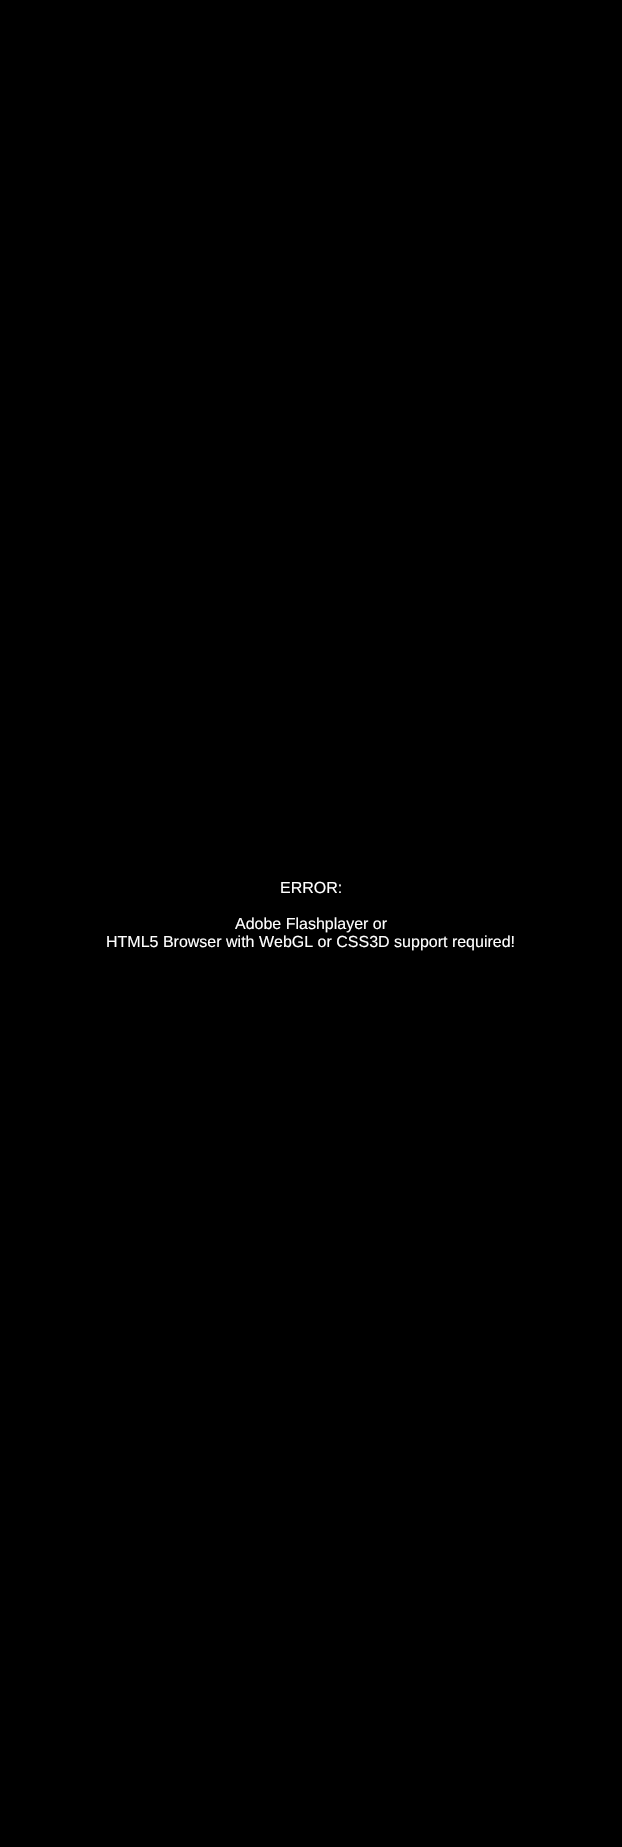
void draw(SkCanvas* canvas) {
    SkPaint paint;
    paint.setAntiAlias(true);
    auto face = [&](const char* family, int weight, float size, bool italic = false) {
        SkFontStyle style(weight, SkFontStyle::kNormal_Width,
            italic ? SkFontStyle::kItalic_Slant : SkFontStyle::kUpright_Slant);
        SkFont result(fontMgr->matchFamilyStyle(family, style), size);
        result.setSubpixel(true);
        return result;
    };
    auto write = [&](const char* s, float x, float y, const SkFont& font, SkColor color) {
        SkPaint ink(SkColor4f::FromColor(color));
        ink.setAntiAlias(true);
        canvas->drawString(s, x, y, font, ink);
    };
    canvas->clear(SK_ColorBLACK);
    auto kFont1 = face("Liberation Sans", 400, 16);
    write("ERROR:", 280, 893, kFont1, SK_ColorWHITE);
    write("Adobe Flashplayer or", 235, 929, kFont1, SK_ColorWHITE);
    write("HTML5 Browser with WebGL or CSS3D support required!", 106, 947, kFont1, SK_ColorWHITE);
}
